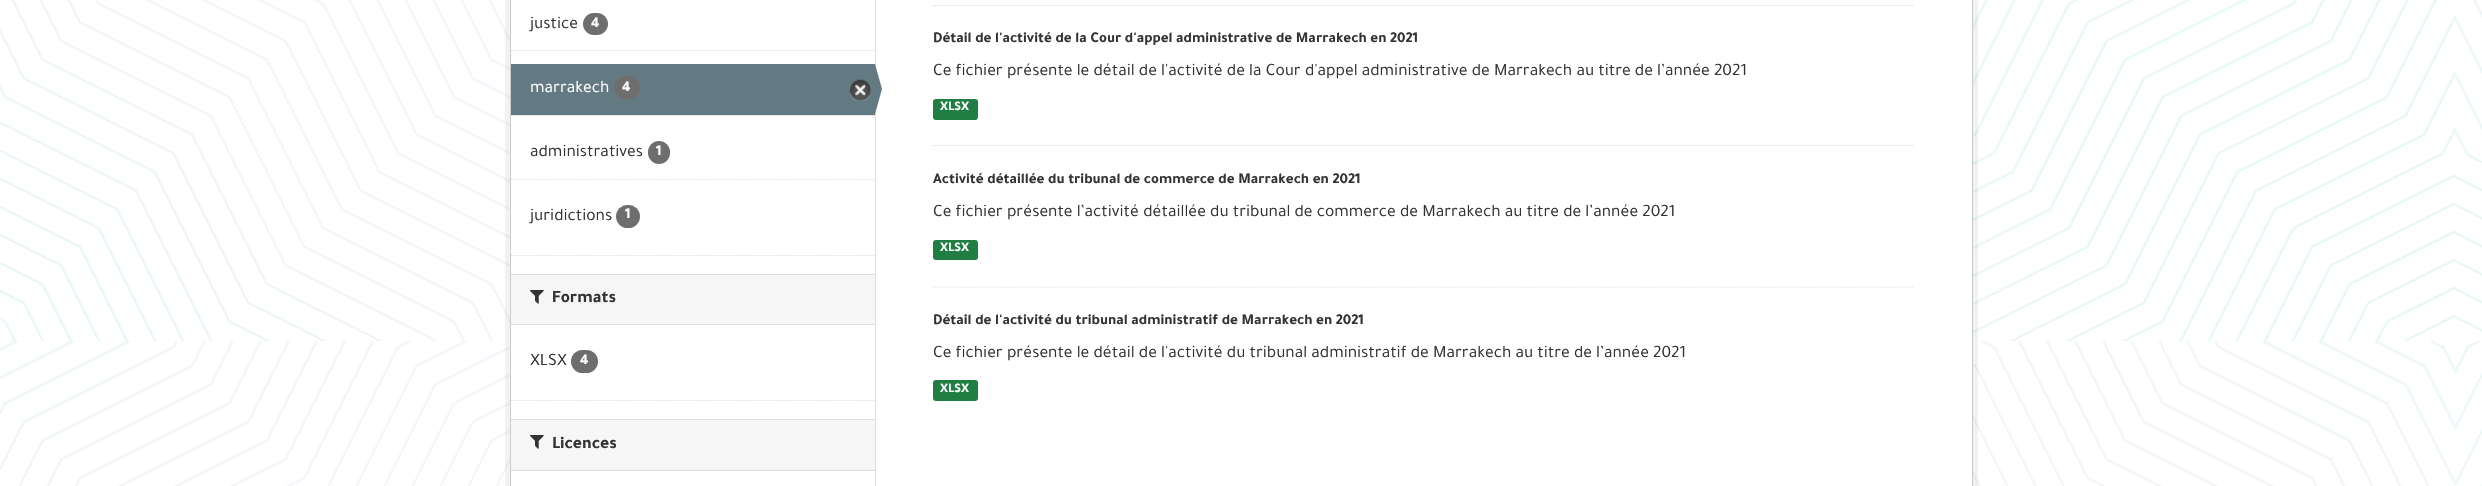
void draw(SkCanvas* canvas) {
    SkPaint paint;
    paint.setAntiAlias(true);
    auto face = [&](const char* family, int weight, float size, bool italic = false) {
        SkFontStyle style(weight, SkFontStyle::kNormal_Width,
            italic ? SkFontStyle::kItalic_Slant : SkFontStyle::kUpright_Slant);
        SkFont result(fontMgr->matchFamilyStyle(family, style), size);
        result.setSubpixel(true);
        return result;
    };
    auto write = [&](const char* s, float x, float y, const SkFont& font, SkColor color) {
        SkPaint ink(SkColor4f::FromColor(color));
        ink.setAntiAlias(true);
        canvas->drawString(s, x, y, font, ink);
    };
    auto block = [&](float x, float y, float w, float h, SkColor color) {
        SkPaint ink(SkColor4f::FromColor(color));
        ink.setAntiAlias(true);
        canvas->drawRect(SkRect::MakeXYWH(x, y, w, h), ink);
    };
    auto card = [&](float x, float y, float w, float h, float radius, SkColor color) {
        SkPaint ink(SkColor4f::FromColor(color));
        ink.setAntiAlias(true);
        canvas->drawRoundRect(SkRect::MakeXYWH(x, y, w, h), radius, radius, ink);
    };
    auto paste = [&](const char* path, float x, float y, float w, float h) {
        auto image = SkImages::DeferredFromEncodedData(SkData::MakeFromFileName(path));
        canvas->drawImageRect(image, SkRect::MakeXYWH(x, y, w, h), SkSamplingOptions());
    };
    canvas->clear(SK_ColorWHITE);
    paste("pic1.png", 0, 0, 2482, 486);
    paint.setStyle(SkPaint::kStroke_Style);
    paint.setStrokeWidth(5);
    paint.setColor(SkColorSetARGB(13, 0, 0, 0));
    canvas->drawRect(SkRect::MakeXYWH(507.5f, -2.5f, 1468, 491), paint);
    paint.setStyle(SkPaint::kFill_Style);
    paint.setColor(SK_ColorWHITE);
    canvas->drawRect(SkRect::MakeXYWH(510.5f, -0.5f, 1462, 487), paint);
    paint.setStyle(SkPaint::kStroke_Style);
    paint.setStrokeWidth(1);
    paint.setColor(SkColorSetRGB(204, 204, 204));
    canvas->drawRect(SkRect::MakeXYWH(510.5f, -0.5f, 1462, 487), paint);
    paint.setStrokeWidth(1.2f);
    paint.setColor(SkColorSetRGB(221, 221, 221));
    paint.setPathEffect(SkDashPathEffect::Make({{1.25f, 1.25f}}, 0));
    canvas->drawPath(SkPathBuilder().moveTo(511, 50.5f).lineTo(875, 50.5f).detach(), paint);
    paint.setPathEffect(nullptr);
    auto kFont1 = face("Tajawal", 400, 17.5f);
    write("justice", 530, 28, kFont1, SkColorSetRGB(51, 51, 51));
    card(583, 13, 25, 22, 11, SkColorSetRGB(110, 110, 110));
    auto kFont2 = face("Tajawal", 700, 15);
    write("4", 591, 27, kFont2, SK_ColorWHITE);
    block(512, 115, 363, 1, SkColorSetRGB(246, 246, 246));
    paint.setPathEffect(SkDashPathEffect::Make({{1.25f, 1.25f}}, 0));
    canvas->drawPath(SkPathBuilder().moveTo(511, 115.5f).lineTo(875, 115.5f).detach(), paint);
    paint.setPathEffect(nullptr);
    block(511, 64, 364, 51, SkColorSetRGB(100, 122, 130));
    write("marrakech", 530, 92, kFont1, SK_ColorWHITE);
    card(614, 76, 26, 23, 11.5f, SkColorSetRGB(110, 110, 110));
    write("4", 622, 91, kFont2, SK_ColorWHITE);
    paste("pic2.png", 850, 79, 22, 22);
    block(875, 0, 1, 486, SkColorSetRGB(221, 221, 221));
    paint.setStyle(SkPaint::kFill_Style);
    paint.setColor(SkColorSetRGB(100, 122, 130));
    canvas->drawPath(SkPathBuilder().moveTo(875, 114).lineTo(875, 64).lineTo(882, 89).close().detach(), paint);
    paint.setStyle(SkPaint::kStroke_Style);
    paint.setColor(SkColorSetRGB(221, 221, 221));
    paint.setPathEffect(SkDashPathEffect::Make({{1.25f, 1.25f}}, 0));
    canvas->drawPath(SkPathBuilder().moveTo(511, 179.5f).lineTo(875, 179.5f).detach(), paint);
    paint.setPathEffect(nullptr);
    write("administratives", 530, 156, kFont1, SkColorSetRGB(51, 51, 51));
    card(648, 141, 22, 23, 11, SkColorSetRGB(110, 110, 110));
    write("1", 656, 155, kFont2, SK_ColorWHITE);
    write("juridictions", 530, 220, kFont1, SkColorSetRGB(51, 51, 51));
    card(616, 205, 24, 23, 11.5f, SkColorSetRGB(110, 110, 110));
    write("1", 625, 218, kFont2, SK_ColorWHITE);
    paint.setPathEffect(SkDashPathEffect::Make({{1.25f, 1.25f}}, 0));
    canvas->drawPath(SkPathBuilder().moveTo(511, 255.5f).lineTo(875, 255.5f).detach(), paint);
    paint.setPathEffect(nullptr);
    block(511, 275, 364, 49, SkColorSetRGB(246, 246, 246));
    block(511, 274, 364, 1, SkColorSetRGB(221, 221, 221));
    block(511, 324, 364, 1, SkColorSetRGB(221, 221, 221));
    paste("pic3.png", 530, 290, 14, 14);
    auto kFont3 = face("Tajawal", 700, 17.5f);
    write("Formats", 552, 302, kFont3, SkColorSetRGB(51, 51, 51));
    write("XLSX", 530, 365, kFont1, SkColorSetRGB(51, 51, 51));
    card(571, 350, 27, 23, 11.5f, SkColorSetRGB(110, 110, 110));
    write("4", 580, 364, kFont2, SK_ColorWHITE);
    paint.setPathEffect(SkDashPathEffect::Make({{1.25f, 1.25f}}, 0));
    canvas->drawPath(SkPathBuilder().moveTo(511, 400.5f).lineTo(875, 400.5f).detach(), paint);
    paint.setPathEffect(nullptr);
    block(511, 420, 364, 50, SkColorSetRGB(246, 246, 246));
    block(511, 419, 364, 1, SkColorSetRGB(221, 221, 221));
    block(511, 470, 364, 1, SkColorSetRGB(221, 221, 221));
    paste("pic3.png", 530, 435, 14, 14);
    write("Licences", 552, 448, kFont3, SkColorSetRGB(51, 51, 51));
    paint.setPathEffect(SkDashPathEffect::Make({{1.25f, 1.25f}}, 0));
    canvas->drawPath(SkPathBuilder().moveTo(932.5f, 5.5f).lineTo(1915, 5.5f).detach(), paint);
    paint.setPathEffect(nullptr);
    paint.setPathEffect(SkDashPathEffect::Make({{1.25f, 1.25f}}, 0));
    canvas->drawPath(SkPathBuilder().moveTo(932.5f, 145.5f).lineTo(1915, 145.5f).detach(), paint);
    paint.setPathEffect(nullptr);
    write("Détail de l'activité de la Cour d'appel administrative de Marrakech en 2021", 933, 42, kFont2, SkColorSetRGB(51, 51, 51));
    write("Ce fichier présente le détail de l'activité de la Cour d'appel administrative de Marrakech au titre de l’année 2021", 933, 75, kFont1, SkColorSetRGB(51, 51, 51));
    card(933, 99, 45, 21, 3, SkColorSetRGB(32, 126, 66));
    auto kFont4 = face("Tajawal", 700, 13);
    write("XLSX", 940, 110, kFont4, SK_ColorWHITE);
    paint.setPathEffect(SkDashPathEffect::Make({{1.25f, 1.25f}}, 0));
    canvas->drawPath(SkPathBuilder().moveTo(932.5f, 287).lineTo(1915, 287).detach(), paint);
    paint.setPathEffect(nullptr);
    write("Activité détaillée du tribunal de commerce de Marrakech en 2021", 933, 183, kFont2, SkColorSetRGB(51, 51, 51));
    write("Ce fichier présente l’activité détaillée du tribunal de commerce de Marrakech au titre de l’année 2021", 933, 216, kFont1, SkColorSetRGB(51, 51, 51));
    card(933, 240, 45, 20, 3, SkColorSetRGB(32, 126, 66));
    write("XLSX", 940, 251, kFont4, SK_ColorWHITE);
    write("Détail de l'activité du tribunal administratif de Marrakech en 2021", 933, 324, kFont2, SkColorSetRGB(51, 51, 51));
    write("Ce fichier présente le détail de l'activité du tribunal administratif de Marrakech au titre de l’année 2021", 933, 357, kFont1, SkColorSetRGB(51, 51, 51));
    card(933, 380, 45, 21, 3, SkColorSetRGB(32, 126, 66));
    write("XLSX", 940, 392, kFont4, SK_ColorWHITE);
}
